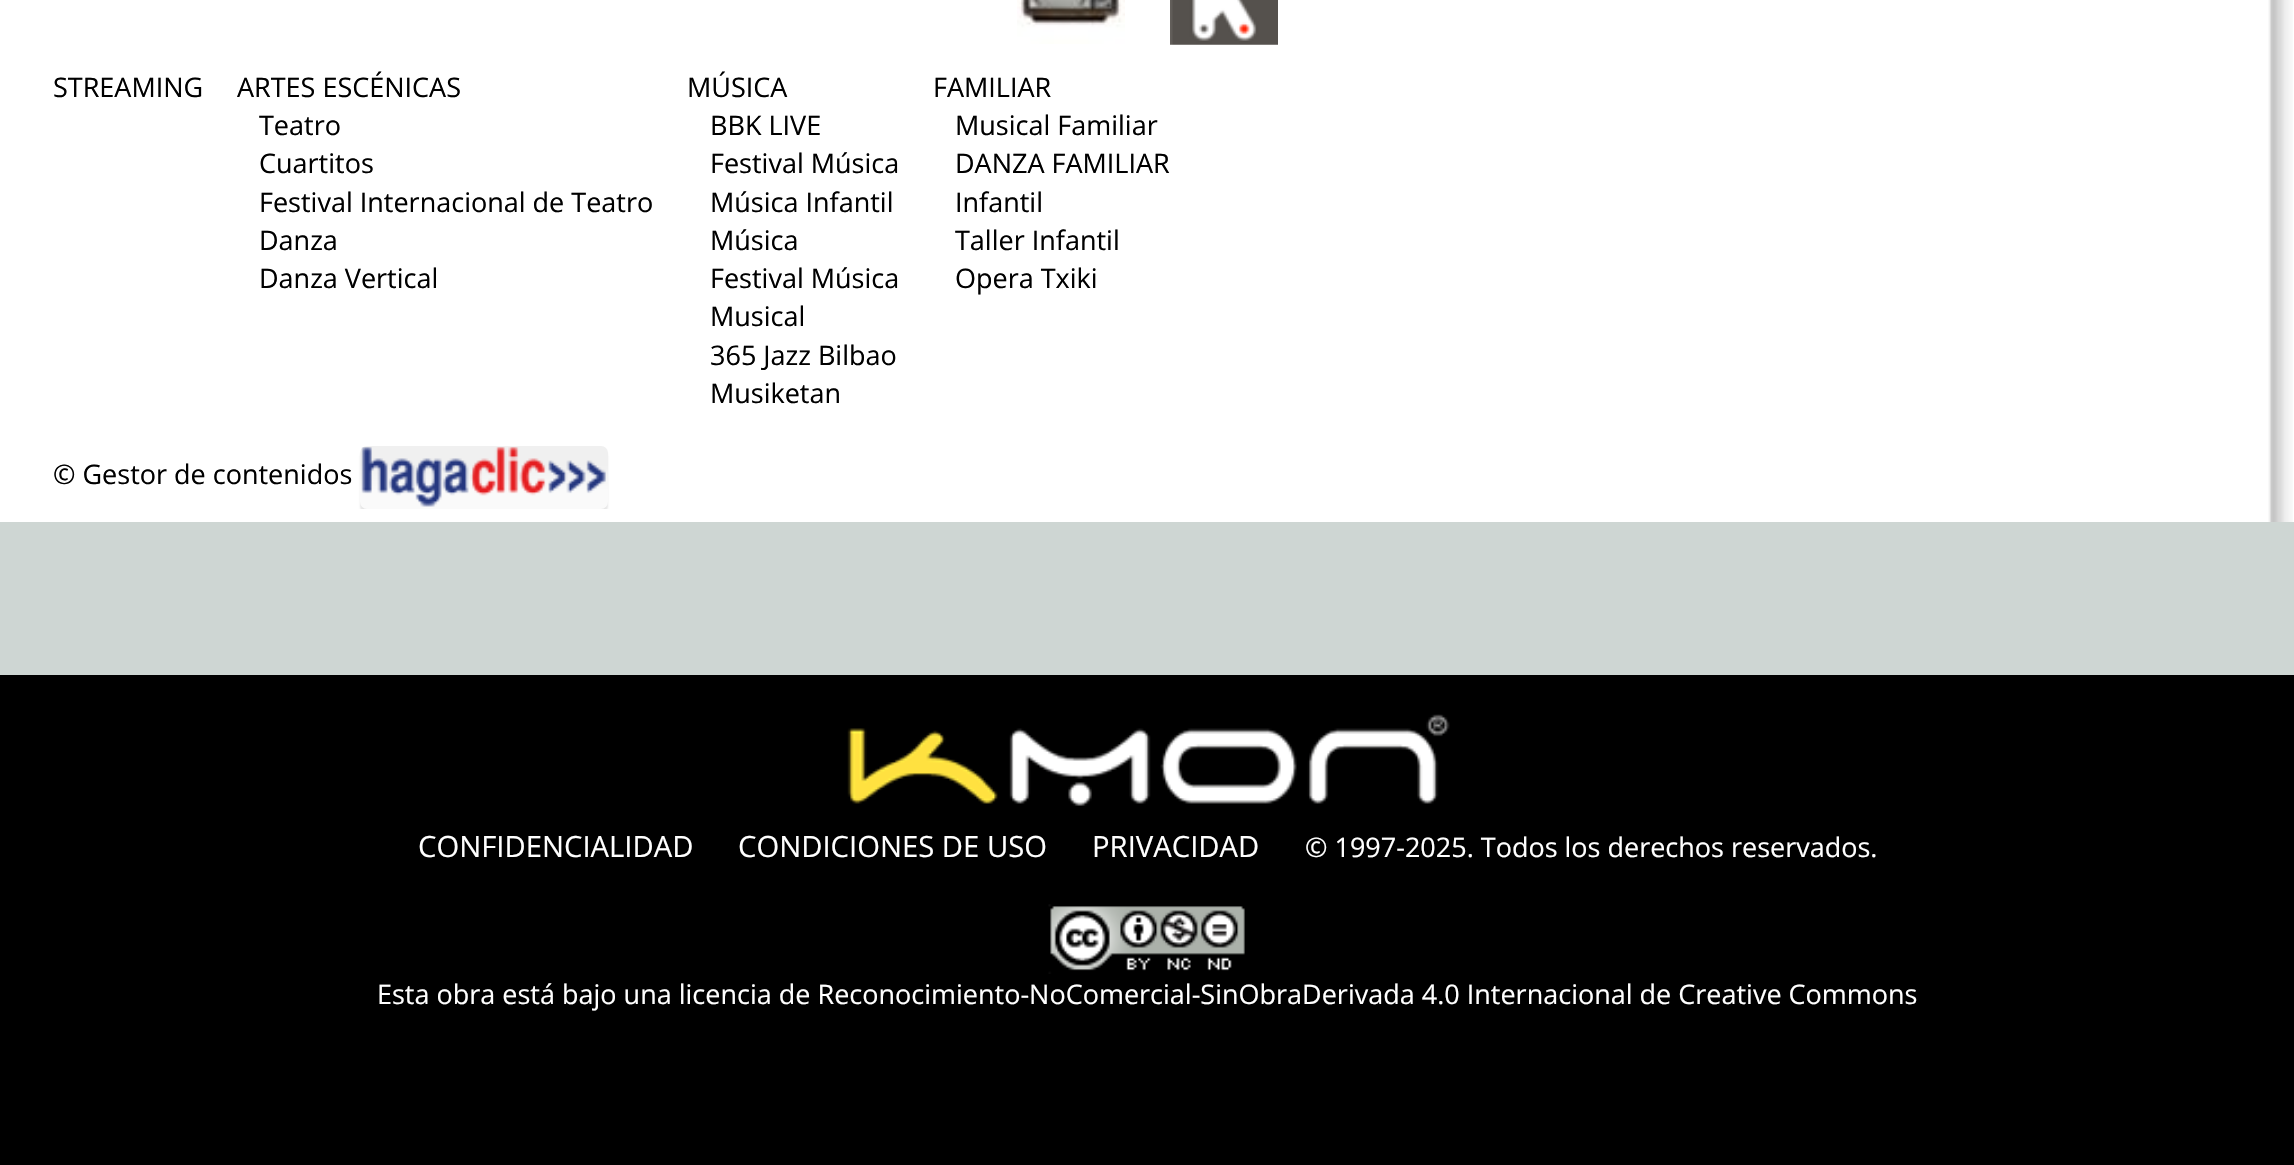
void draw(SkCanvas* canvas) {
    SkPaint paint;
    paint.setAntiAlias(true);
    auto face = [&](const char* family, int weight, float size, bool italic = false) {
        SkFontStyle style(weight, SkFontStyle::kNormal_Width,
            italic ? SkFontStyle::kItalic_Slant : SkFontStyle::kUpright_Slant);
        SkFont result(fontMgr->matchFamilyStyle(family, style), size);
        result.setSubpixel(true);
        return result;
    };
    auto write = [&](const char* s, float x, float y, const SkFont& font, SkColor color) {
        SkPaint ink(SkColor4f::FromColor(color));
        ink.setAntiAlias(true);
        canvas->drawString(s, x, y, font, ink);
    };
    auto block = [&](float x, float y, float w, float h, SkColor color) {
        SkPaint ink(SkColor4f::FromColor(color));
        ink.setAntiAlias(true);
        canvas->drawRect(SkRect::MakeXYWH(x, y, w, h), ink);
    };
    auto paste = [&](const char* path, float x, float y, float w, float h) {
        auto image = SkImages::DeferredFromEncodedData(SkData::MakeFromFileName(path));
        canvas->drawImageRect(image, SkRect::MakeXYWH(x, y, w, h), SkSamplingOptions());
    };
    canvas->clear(SK_ColorWHITE);
    paste("pic1.png", 2268, 0, 25, 522);
    paste("pic2.png", 1017, 0, 108, 44);
    paste("pic3.png", 1170, 0, 108, 45);
    auto kFont1 = face("Open Sans", 400, 27);
    write("STREAMING", 53, 97, kFont1, SK_ColorBLACK);
    write("ARTES ESCÉNICAS", 237, 97, kFont1, SK_ColorBLACK);
    write("Teatro", 259, 135, kFont1, SK_ColorBLACK);
    write("Cuartitos", 259, 173, kFont1, SK_ColorBLACK);
    write("Festival Internacional de Teatro", 259, 212, kFont1, SK_ColorBLACK);
    write("Danza", 259, 250, kFont1, SK_ColorBLACK);
    write("Danza Vertical", 259, 288, kFont1, SK_ColorBLACK);
    write("MÚSICA", 687, 97, kFont1, SK_ColorBLACK);
    write("BBK LIVE", 710, 135, kFont1, SK_ColorBLACK);
    write("Festival Música", 710, 173, kFont1, SK_ColorBLACK);
    write("Música Infantil", 710, 212, kFont1, SK_ColorBLACK);
    write("Música", 710, 250, kFont1, SK_ColorBLACK);
    write("Festival Música", 710, 288, kFont1, SK_ColorBLACK);
    write("Musical", 710, 326, kFont1, SK_ColorBLACK);
    write("365 Jazz Bilbao", 710, 365, kFont1, SK_ColorBLACK);
    write("Musiketan", 710, 403, kFont1, SK_ColorBLACK);
    write("FAMILIAR", 933, 97, kFont1, SK_ColorBLACK);
    write("Musical Familiar", 955, 135, kFont1, SK_ColorBLACK);
    write("DANZA FAMILIAR", 955, 173, kFont1, SK_ColorBLACK);
    write("Infantil", 955, 212, kFont1, SK_ColorBLACK);
    write("Taller Infantil", 955, 250, kFont1, SK_ColorBLACK);
    write("Opera Txiki", 955, 288, kFont1, SK_ColorBLACK);
    write("© Gestor de contenidos", 53, 484, kFont1, SK_ColorBLACK);
    canvas->save();
    canvas->clipRect(SkRect::MakeXYWH(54, 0, 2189, 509));
    paint.setColor(SkColorSetARGB(191, 222, 222, 222));
    paint.setMaskFilter(SkMaskFilter::MakeBlur(kNormal_SkBlurStyle, 1));
    canvas->drawRoundRect(SkRect::MakeXYWH(360, 450, 248, 63), 7, 7, paint);
    paint.setMaskFilter(nullptr);
    canvas->restore();
    {
        const SkColor colors[] = {SkColorSetRGB(250, 250, 250), SkColorSetRGB(240, 240, 240)};
        const float stops[] = {0.3f, 0.7f};
        const SkPoint ends[] = {{484, 509}, {484, 446}};
        paint.setShader(SkGradientShader::MakeLinear(ends, colors, stops, 2, SkTileMode::kClamp));
        paint.setAlpha(255);
    }
    canvas->drawRoundRect(SkRect::MakeXYWH(360, 446, 248, 63), 7, 7, paint);
    paste("pic4.png", 361, 447, 245, 60);
    block(0, 522, 2294, 153, SkColorSetRGB(206, 214, 211));
    block(0, 675, 2294, 490, SK_ColorBLACK);
    paste("pic5.png", 847, 714, 603, 92);
    auto kFont2 = face("Open Sans", 400, 29.25f);
    write("CONFIDENCIALIDAD", 418, 857, kFont2, SK_ColorWHITE);
    write("CONDICIONES DE USO", 738, 857, kFont2, SK_ColorWHITE);
    write("PRIVACIDAD", 1092, 857, kFont2, SK_ColorWHITE);
    write("© 1997-2025. Todos los derechos reservados.", 1305, 857, kFont1, SK_ColorWHITE);
    paste("pic6.png", 1048, 904, 197, 70);
    write("Esta obra está bajo una licencia de Reconocimiento-NoComercial-SinObraDerivada 4.0 Internacional de Creative Commons", 377, 1004, kFont1, SK_ColorWHITE);
}
